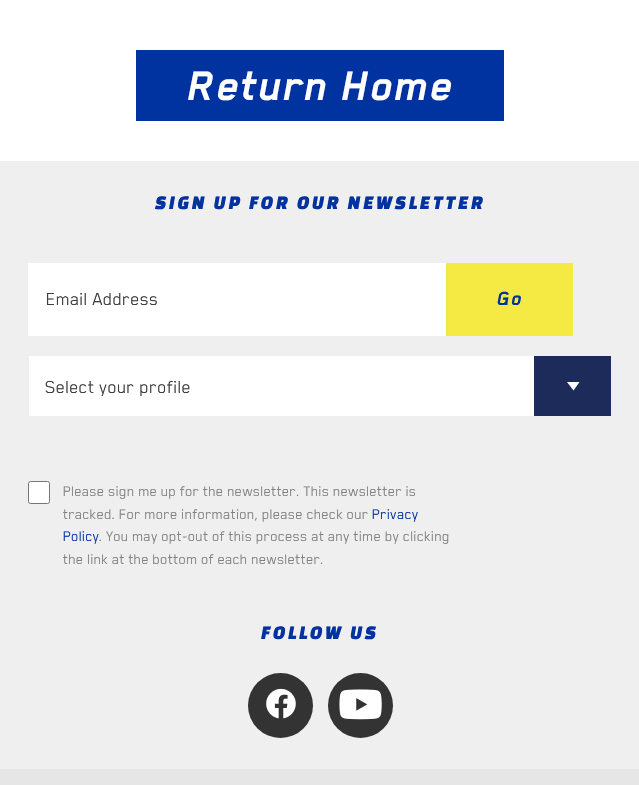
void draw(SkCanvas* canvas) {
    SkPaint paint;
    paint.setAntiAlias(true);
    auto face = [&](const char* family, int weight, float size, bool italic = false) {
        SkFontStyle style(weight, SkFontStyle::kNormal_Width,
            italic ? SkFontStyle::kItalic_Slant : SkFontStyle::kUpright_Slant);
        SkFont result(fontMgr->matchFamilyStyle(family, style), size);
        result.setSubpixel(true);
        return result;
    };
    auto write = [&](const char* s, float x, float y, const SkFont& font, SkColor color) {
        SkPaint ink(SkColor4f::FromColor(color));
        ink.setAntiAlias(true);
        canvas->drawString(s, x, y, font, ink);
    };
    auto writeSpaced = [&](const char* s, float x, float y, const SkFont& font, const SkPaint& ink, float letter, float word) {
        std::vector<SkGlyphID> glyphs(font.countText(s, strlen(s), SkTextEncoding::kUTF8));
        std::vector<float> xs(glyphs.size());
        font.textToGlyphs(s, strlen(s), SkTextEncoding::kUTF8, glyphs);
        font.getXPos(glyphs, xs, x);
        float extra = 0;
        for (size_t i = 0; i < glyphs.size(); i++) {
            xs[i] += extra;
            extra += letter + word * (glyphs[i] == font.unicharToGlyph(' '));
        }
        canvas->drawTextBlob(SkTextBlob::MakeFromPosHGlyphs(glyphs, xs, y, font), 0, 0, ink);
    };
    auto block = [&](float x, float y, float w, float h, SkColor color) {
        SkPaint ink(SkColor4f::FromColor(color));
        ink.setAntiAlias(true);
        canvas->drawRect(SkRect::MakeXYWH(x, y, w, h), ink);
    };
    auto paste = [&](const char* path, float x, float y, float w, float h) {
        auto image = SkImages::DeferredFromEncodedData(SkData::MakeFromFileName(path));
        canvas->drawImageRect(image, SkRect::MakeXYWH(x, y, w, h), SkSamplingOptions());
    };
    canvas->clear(SK_ColorWHITE);
    block(136, 50, 368, 71, SkColorSetRGB(0, 50, 160));
    auto kFont1 = face("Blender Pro", 700, 47.75f, true);
    paint.setColor(SK_ColorWHITE);
    writeSpaced("Return Home", 186, 100, kFont1, paint, 1.25f, 0);
    block(0, 161, 639, 608, SkColorSetRGB(239, 239, 239));
    auto kFont2 = face("Changa One", 400, 20, true);
    paint.setColor(SkColorSetRGB(0, 50, 160));
    writeSpaced("SIGN UP FOR OUR NEWSLETTER", 155, 209, kFont2, paint, 2.5f, 0);
    block(28, 263, 418, 73, SK_ColorWHITE);
    auto kFont3 = face("Blender Pro", 400, 20);
    write("Email Address", 46, 305, kFont3, SkColorSetRGB(62, 62, 62));
    block(446, 263, 127, 73, SkColorSetRGB(245, 233, 68));
    auto kFont4 = face("Blender Pro", 700, 22, true);
    writeSpaced("Go", 496, 305, kFont4, paint, 1.25f, 0);
    block(29, 356, 505, 60, SK_ColorWHITE);
    block(534, 356, 77, 60, SkColorSetRGB(29, 43, 90));
    paint.setColor(SK_ColorWHITE);
    canvas->drawPath(SkPathBuilder().moveTo(567, 382).lineTo(579.5f, 382).lineTo(573.5f, 390.5f).close().detach(), paint);
    canvas->save();
    canvas->clipRect(SkRect::MakeXYWH(45, 376, 481, 20));
    write("Select your profile", 45, 393, kFont3, SkColorSetRGB(62, 62, 62));
    canvas->restore();
    canvas->drawRoundRect(SkRect::MakeXYWH(28.5f, 481.5f, 21, 22), 2, 2, paint);
    paint.setStyle(SkPaint::kStroke_Style);
    paint.setStrokeWidth(1);
    paint.setColor(SkColorSetRGB(118, 118, 118));
    canvas->drawRoundRect(SkRect::MakeXYWH(28.5f, 481.5f, 21, 22), 2, 2, paint);
    auto kFont5 = face("Blender Pro", 400, 16);
    write("Please sign me up for the newsletter. This newsletter is", 63, 496, kFont5, SkColorSetRGB(128, 128, 128));
    write("tracked. For more information, please check our", 63, 519, kFont5, SkColorSetRGB(128, 128, 128));
    write("Privacy", 372, 519, kFont5, SkColorSetRGB(0, 50, 160));
    write("Policy", 63, 541, kFont5, SkColorSetRGB(0, 50, 160));
    write(". You may opt-out of this process at any time by clicking", 99, 541, kFont5, SkColorSetRGB(128, 128, 128));
    write("the link at the bottom of each newsletter.", 63, 564, kFont5, SkColorSetRGB(128, 128, 128));
    paint.setStyle(SkPaint::kFill_Style);
    paint.setColor(SkColorSetRGB(0, 50, 160));
    writeSpaced("FOLLOW US", 261, 639, kFont2, paint, 2.5f, 0);
    paint.setColor(SkColorSetRGB(51, 51, 51));
    canvas->drawCircle(280.5f, 705.5f, 32.5f, paint);
    paste("pic1.png", 266, 688, 30, 31);
    canvas->drawCircle(360.5f, 705.5f, 32.5f, paint);
    paste("pic2.png", 339, 689, 43, 31);
    block(0, 769, 639, 16, SkColorSetRGB(230, 230, 230));
}
